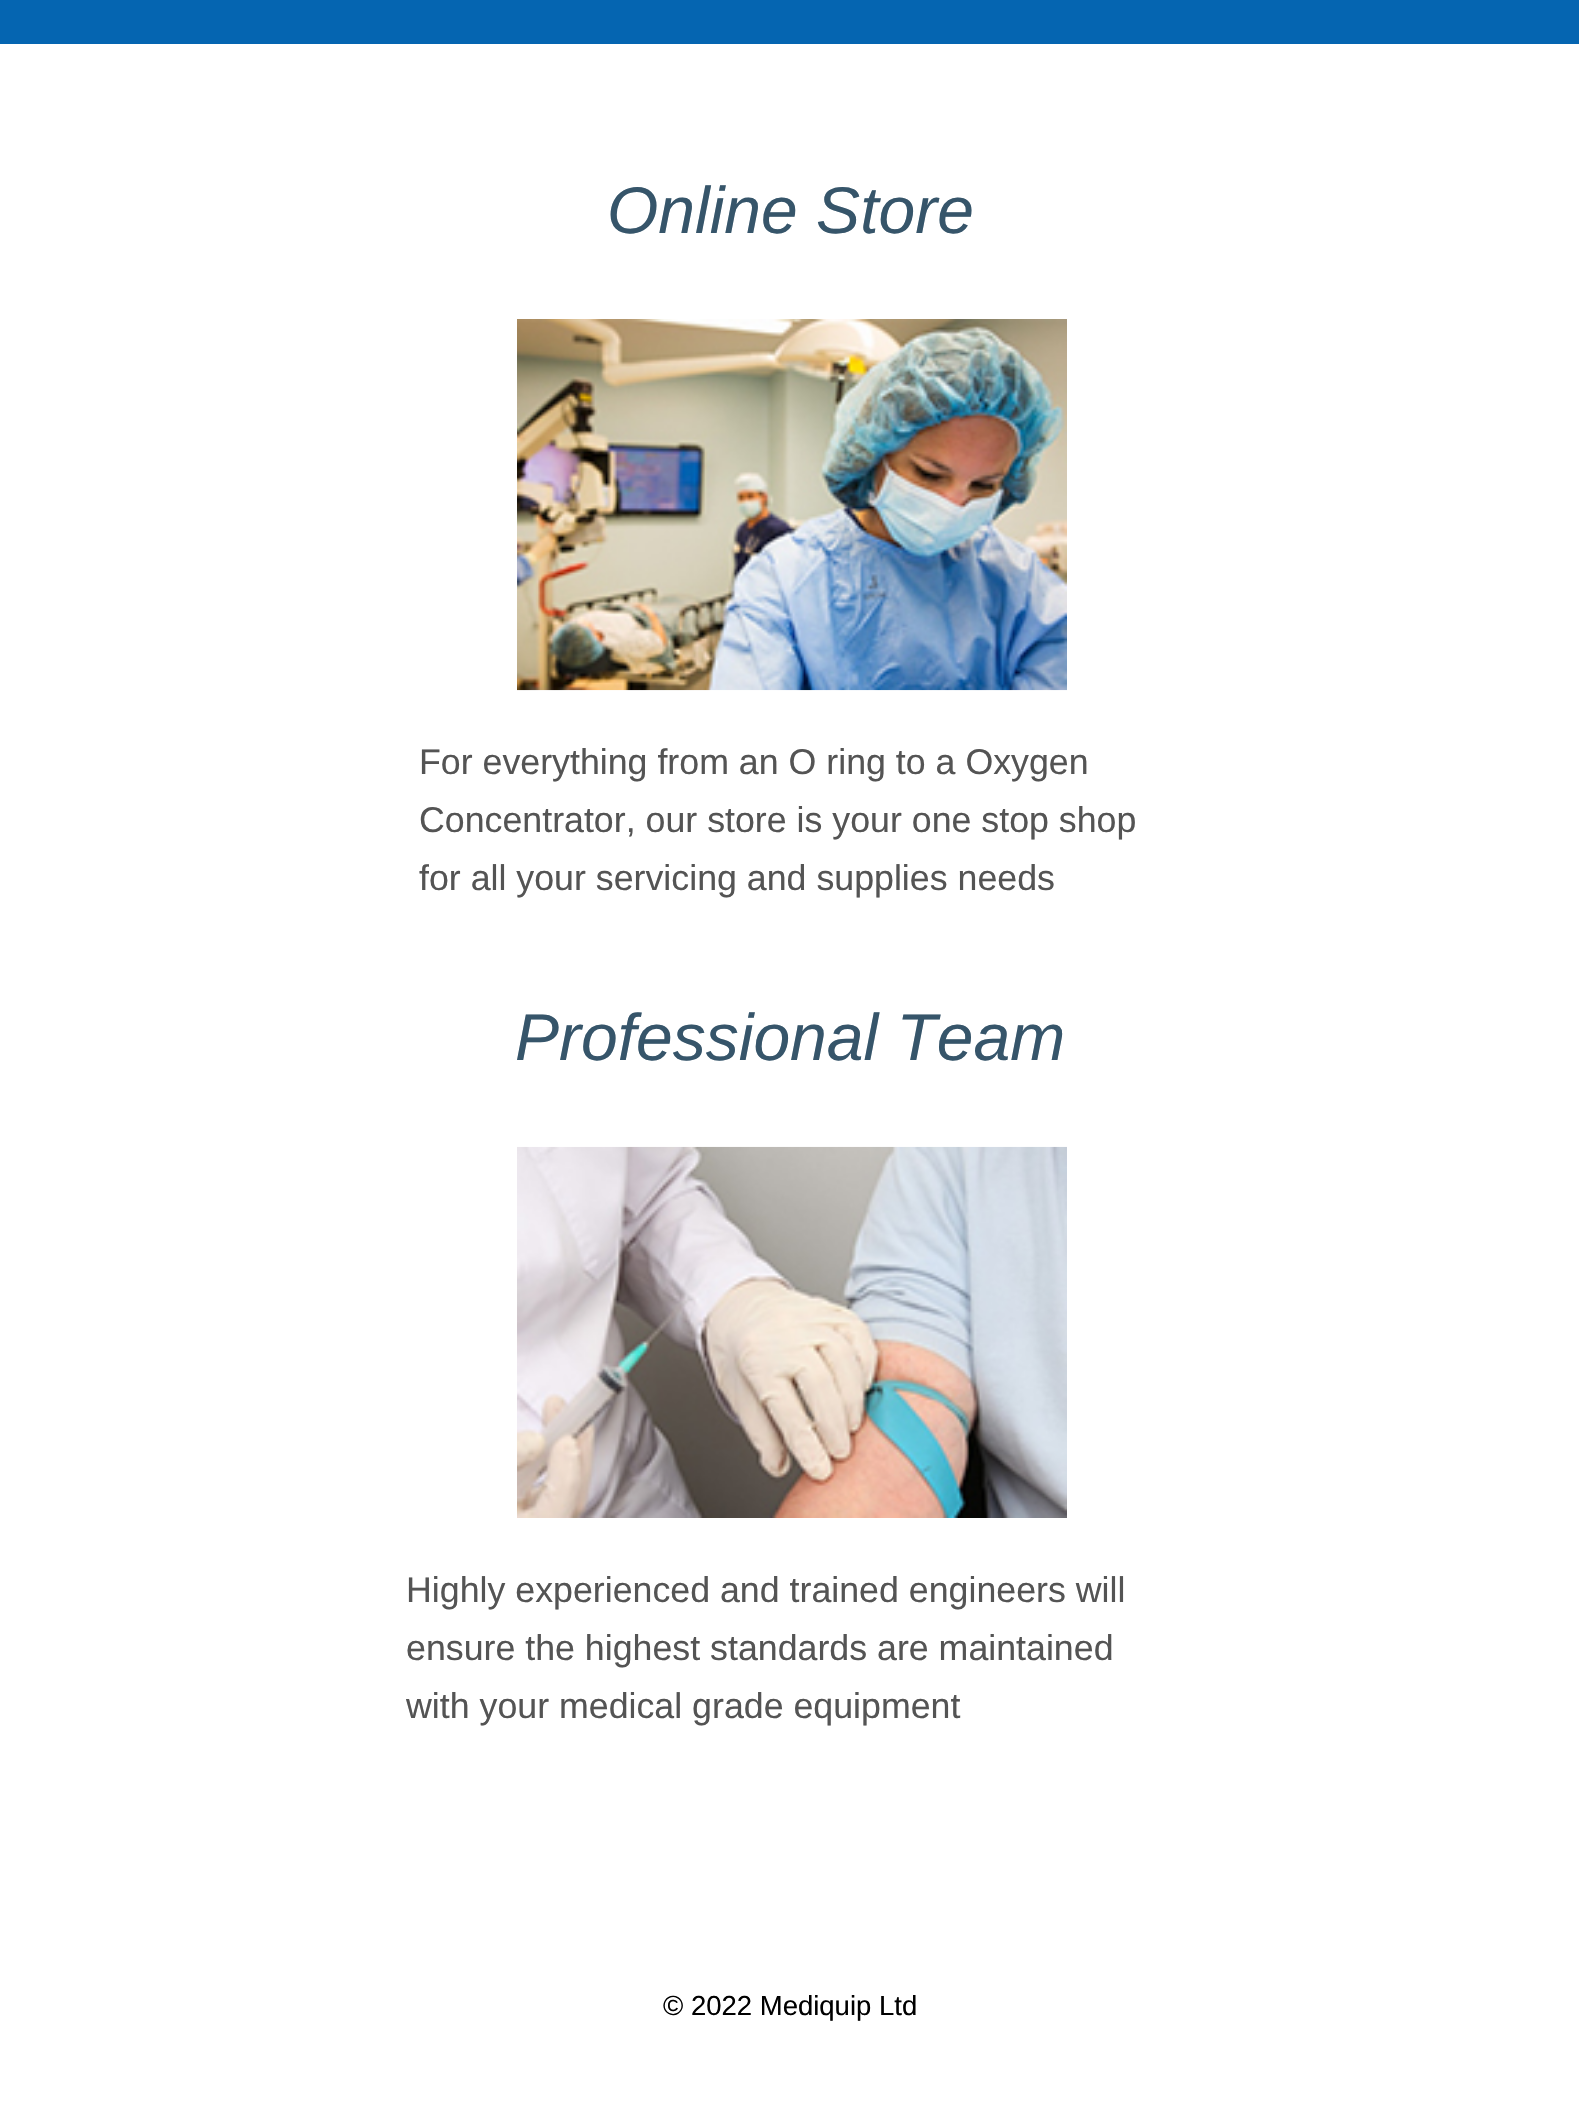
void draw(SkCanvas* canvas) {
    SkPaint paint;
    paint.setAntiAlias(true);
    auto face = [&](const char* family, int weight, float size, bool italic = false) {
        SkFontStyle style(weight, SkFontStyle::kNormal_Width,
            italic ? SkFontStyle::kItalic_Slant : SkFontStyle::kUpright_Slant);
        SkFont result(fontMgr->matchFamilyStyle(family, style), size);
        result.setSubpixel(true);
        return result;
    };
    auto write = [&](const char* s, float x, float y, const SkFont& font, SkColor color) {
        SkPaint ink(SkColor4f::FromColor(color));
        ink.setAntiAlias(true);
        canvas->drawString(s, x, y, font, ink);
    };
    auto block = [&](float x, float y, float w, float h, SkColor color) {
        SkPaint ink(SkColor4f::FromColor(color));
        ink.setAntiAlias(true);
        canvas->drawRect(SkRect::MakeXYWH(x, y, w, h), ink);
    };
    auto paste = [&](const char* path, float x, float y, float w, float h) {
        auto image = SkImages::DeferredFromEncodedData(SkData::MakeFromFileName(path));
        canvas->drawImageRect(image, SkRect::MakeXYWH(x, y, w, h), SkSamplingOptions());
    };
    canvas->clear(SK_ColorWHITE);
    block(0, 0, 1579, 44, SkColorSetRGB(5, 101, 177));
    auto kFont1 = face("Liberation Sans", 400, 66, true);
    write("Online Store", 607, 233, kFont1, SkColorSetRGB(54, 85, 106));
    paste("pic1.png", 517, 319, 550, 372);
    auto kFont2 = face("Liberation Sans", 400, 35.75f);
    write("For everything from an O ring to a Oxygen", 419, 774, kFont2, SkColorSetRGB(84, 84, 84));
    write("Concentrator, our store is your one stop shop", 419, 832, kFont2, SkColorSetRGB(84, 84, 84));
    write("for all your servicing and supplies needs", 419, 890, kFont2, SkColorSetRGB(84, 84, 84));
    write("Professional Team", 515, 1060, kFont1, SkColorSetRGB(54, 85, 106));
    paste("pic2.png", 517, 1146, 550, 372);
    write("Highly experienced and trained engineers will", 406, 1602, kFont2, SkColorSetRGB(84, 84, 84));
    write("ensure the highest standards are maintained", 406, 1660, kFont2, SkColorSetRGB(84, 84, 84));
    write("with your medical grade equipment", 406, 1718, kFont2, SkColorSetRGB(84, 84, 84));
    auto kFont3 = face("Liberation Sans", 400, 27.5f);
    write("© 2022 Mediquip Ltd", 663, 2015, kFont3, SK_ColorBLACK);
}
